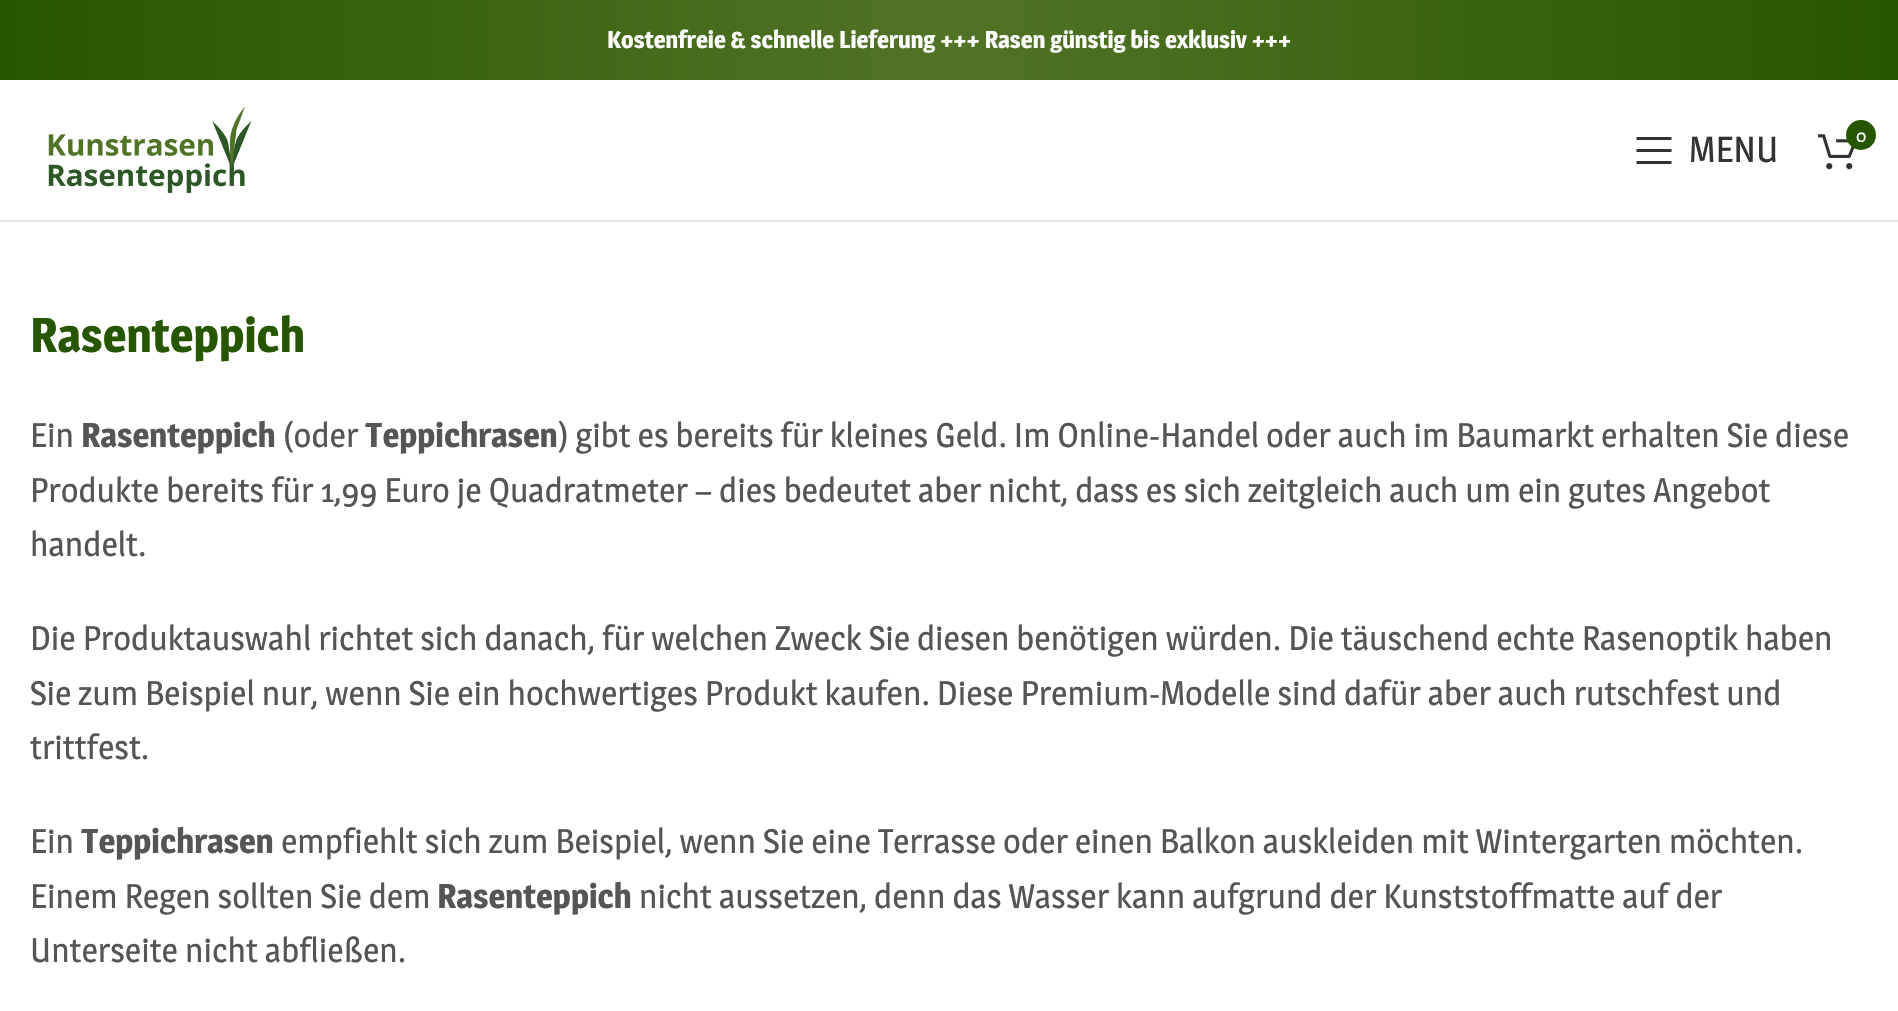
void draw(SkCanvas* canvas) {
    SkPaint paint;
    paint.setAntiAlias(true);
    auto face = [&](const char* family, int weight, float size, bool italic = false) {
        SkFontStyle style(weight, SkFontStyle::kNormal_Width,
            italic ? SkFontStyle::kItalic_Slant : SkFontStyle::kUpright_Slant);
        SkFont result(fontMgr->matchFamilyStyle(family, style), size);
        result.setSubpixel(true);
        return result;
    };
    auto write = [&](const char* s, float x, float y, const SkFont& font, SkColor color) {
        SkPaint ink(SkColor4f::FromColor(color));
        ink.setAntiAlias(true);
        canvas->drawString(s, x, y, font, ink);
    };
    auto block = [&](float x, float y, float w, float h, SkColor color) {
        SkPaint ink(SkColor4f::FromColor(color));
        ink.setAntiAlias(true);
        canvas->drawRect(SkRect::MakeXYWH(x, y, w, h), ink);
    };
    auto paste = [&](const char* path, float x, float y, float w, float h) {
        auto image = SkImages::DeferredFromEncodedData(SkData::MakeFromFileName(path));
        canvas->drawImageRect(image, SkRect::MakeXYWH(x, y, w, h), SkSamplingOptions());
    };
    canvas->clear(SK_ColorWHITE);
    {
        const SkColor colors[] = {SkColorSetRGB(39, 86, 0), SkColorSetRGB(81, 115, 38), SkColorSetRGB(39, 86, 0)};
        const float stops[] = {0, 0.5f, 1};
        const SkPoint ends[] = {{0, 40}, {1898, 40}};
        paint.setShader(SkGradientShader::MakeLinear(ends, colors, stops, 3, SkTileMode::kClamp));
        paint.setAlpha(255);
    }
    canvas->drawRect(SkRect::MakeXYWH(0, 0, 1898, 80), paint);
    auto kFont1 = face("Magra", 600, 24);
    write("Kostenfreie & schnelle Lieferung +++ Rasen günstig bis exklusiv +++", 607, 48, kFont1, SK_ColorWHITE);
    block(0, 220, 1898, 2, SkColorSetRGB(230, 230, 230));
    paste("pic1.png", 48, 107, 204, 87);
    paint.setShader(nullptr);
    paint.setColor(SkColorSetRGB(51, 51, 51));
    canvas->drawPath(SkPathBuilder().moveTo(1636.5f, 140).lineTo(1671.5f, 140).lineTo(1671.5f, 137).lineTo(1636.5f, 137).close().moveTo(1636.5f, 152).lineTo(1671.5f, 152).lineTo(1671.5f, 149).lineTo(1636.5f, 149).close().moveTo(1636.5f, 164).lineTo(1671.5f, 164).lineTo(1671.5f, 161).lineTo(1636.5f, 161).close().detach(), paint);
    auto kFont2 = face("Magra", 400, 36);
    write("MENU", 1689, 162, kFont2, SkColorSetRGB(51, 51, 51));
    paste("pic2.png", 1818, 134, 37, 36);
    paint.setColor(SkColorSetRGB(39, 86, 0));
    canvas->drawCircle(1861, 135, 15, paint);
    auto kFont3 = face("Magra", 400, 18);
    write("0", 1856, 142, kFont3, SK_ColorWHITE);
    auto kFont4 = face("Magra", 600, 48);
    write("Rasenteppich", 30, 352, kFont4, SkColorSetRGB(39, 86, 0));
    auto kFont5 = face("Magra", 400, 34);
    write("Ein", 30, 447, kFont5, SkColorSetRGB(85, 85, 85));
    auto kFont6 = face("Magra", 600, 34);
    write("Rasenteppich", 81, 447, kFont6, SkColorSetRGB(85, 85, 85));
    write("(oder", 283, 447, kFont5, SkColorSetRGB(85, 85, 85));
    write("Teppichrasen", 365, 447, kFont6, SkColorSetRGB(85, 85, 85));
    write(") gibt es bereits für kleines Geld. Im Online-Handel oder auch im Baumarkt erhalten Sie diese", 558, 447, kFont5, SkColorSetRGB(85, 85, 85));
    write("Produkte bereits für 1,99 Euro je Quadratmeter – dies bedeutet aber nicht, dass es sich zeitgleich auch um ein gutes Angebot", 30, 502, kFont5, SkColorSetRGB(85, 85, 85));
    write("handelt.", 30, 556, kFont5, SkColorSetRGB(85, 85, 85));
    write("Die Produktauswahl richtet sich danach, für welchen Zweck Sie diesen benötigen würden. Die täuschend echte Rasenoptik haben", 30, 650, kFont5, SkColorSetRGB(85, 85, 85));
    write("Sie zum Beispiel nur, wenn Sie ein hochwertiges Produkt kaufen. Diese Premium-Modelle sind dafür aber auch rutschfest und", 30, 705, kFont5, SkColorSetRGB(85, 85, 85));
    write("trittfest.", 30, 759, kFont5, SkColorSetRGB(85, 85, 85));
    write("Ein", 30, 853, kFont5, SkColorSetRGB(85, 85, 85));
    write("Teppichrasen", 81, 853, kFont6, SkColorSetRGB(85, 85, 85));
    write("empfiehlt sich zum Beispiel, wenn Sie eine Terrasse oder einen Balkon auskleiden mit Wintergarten möchten.", 281, 853, kFont5, SkColorSetRGB(85, 85, 85));
    write("Einem Regen sollten Sie dem", 30, 908, kFont5, SkColorSetRGB(85, 85, 85));
    write("Rasenteppich", 437, 908, kFont6, SkColorSetRGB(85, 85, 85));
    write("nicht aussetzen, denn das Wasser kann aufgrund der Kunststoffmatte auf der", 639, 908, kFont5, SkColorSetRGB(85, 85, 85));
    write("Unterseite nicht abfließen.", 30, 962, kFont5, SkColorSetRGB(85, 85, 85));
}
